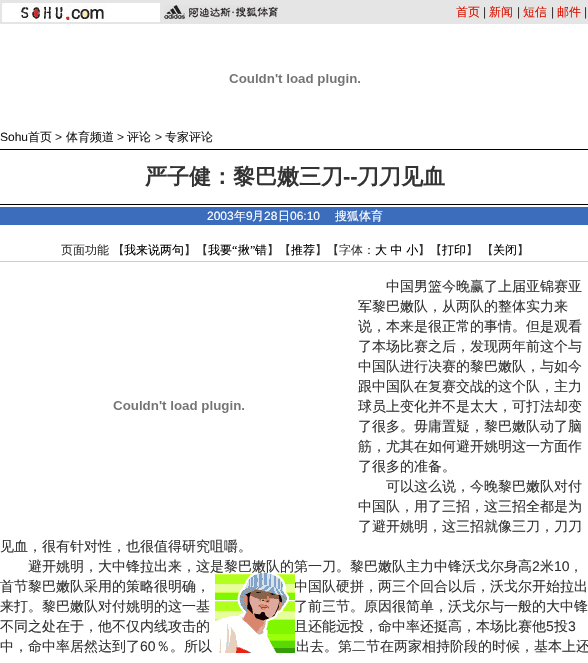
void draw(SkCanvas* canvas) {
    SkPaint paint;
    paint.setAntiAlias(true);
    auto face = [&](const char* family, int weight, float size, bool italic = false) {
        SkFontStyle style(weight, SkFontStyle::kNormal_Width,
            italic ? SkFontStyle::kItalic_Slant : SkFontStyle::kUpright_Slant);
        SkFont result(fontMgr->matchFamilyStyle(family, style), size);
        result.setSubpixel(true);
        return result;
    };
    auto write = [&](const char* s, float x, float y, const SkFont& font, SkColor color) {
        SkPaint ink(SkColor4f::FromColor(color));
        ink.setAntiAlias(true);
        canvas->drawString(s, x, y, font, ink);
    };
    auto block = [&](float x, float y, float w, float h, SkColor color) {
        SkPaint ink(SkColor4f::FromColor(color));
        ink.setAntiAlias(true);
        canvas->drawRect(SkRect::MakeXYWH(x, y, w, h), ink);
    };
    auto paste = [&](const char* path, float x, float y, float w, float h) {
        auto image = SkImages::DeferredFromEncodedData(SkData::MakeFromFileName(path));
        canvas->drawImageRect(image, SkRect::MakeXYWH(x, y, w, h), SkSamplingOptions());
    };
    canvas->clear(SK_ColorWHITE);
    block(0, 0, 588, 24, SkColorSetRGB(229, 229, 229));
    paste("pic1.png", 2, 3, 158, 19);
    paste("pic2.png", 164, 5, 114, 14);
    auto kFont1 = face("WenQuanYi Zen Hei", 500, 12);
    write("首页", 456, 16, kFont1, SkColorSetRGB(217, 18, 0));
    auto kFont2 = face("Liberation Sans", 400, 12);
    write("|", 483, 16, kFont2, SkColorSetRGB(51, 51, 51));
    write("新闻", 489, 16, kFont1, SkColorSetRGB(217, 18, 0));
    write("|", 517, 16, kFont2, SkColorSetRGB(51, 51, 51));
    write("短信", 523, 16, kFont1, SkColorSetRGB(217, 18, 0));
    write("|", 551, 16, kFont2, SkColorSetRGB(51, 51, 51));
    write("邮件", 557, 16, kFont1, SkColorSetRGB(217, 18, 0));
    write("|", 584, 16, kFont2, SkColorSetRGB(51, 51, 51));
    paste("pic3.png", 229, 74, 131, 12);
    write("Sohu", 0, 141, kFont2, SkColorSetRGB(25, 25, 25));
    write("首页", 28, 141, kFont1, SkColorSetRGB(25, 25, 25));
    write(">", 55, 141, kFont2, SkColorSetRGB(51, 51, 51));
    write("体育频道", 66, 141, kFont1, SkColorSetRGB(25, 25, 25));
    write(">", 117, 141, kFont2, SkColorSetRGB(51, 51, 51));
    write("评论", 127, 141, kFont1, SkColorSetRGB(25, 25, 25));
    write(">", 155, 141, kFont2, SkColorSetRGB(51, 51, 51));
    write("专家评论", 165, 141, kFont1, SkColorSetRGB(25, 25, 25));
    block(0, 149, 588, 1, SK_ColorBLACK);
    auto kFont3 = face("WenQuanYi Zen Hei", 700, 22);
    write("严子健：黎巴嫩三刀", 145, 184, kFont3, SkColorSetRGB(51, 51, 51));
    auto kFont4 = face("Liberation Sans", 700, 22);
    write("--", 343, 184, kFont4, SkColorSetRGB(51, 51, 51));
    write("刀刀见血", 357, 184, kFont3, SkColorSetRGB(51, 51, 51));
    block(0, 204, 588, 1, SK_ColorBLACK);
    block(0, 207, 588, 18, SkColorSetRGB(60, 109, 188));
    write("2003", 207, 220, kFont2, SK_ColorWHITE);
    write("年", 234, 220, kFont1, SK_ColorWHITE);
    write("9", 246, 220, kFont2, SK_ColorWHITE);
    write("月", 252, 220, kFont1, SK_ColorWHITE);
    write("28", 264, 220, kFont2, SK_ColorWHITE);
    write("日", 278, 220, kFont1, SK_ColorWHITE);
    write("06:10", 290, 220, kFont2, SK_ColorWHITE);
    write("搜狐体育", 335, 220, kFont1, SK_ColorWHITE);
    write("页面功能 【", 61, 254, kFont1, SkColorSetRGB(51, 51, 51));
    write("我来说两句", 124, 254, kFont1, SK_ColorBLACK);
    write("】【", 184, 254, kFont1, SkColorSetRGB(51, 51, 51));
    write("我要", 208, 254, kFont1, SK_ColorBLACK);
    auto kFont5 = face("Liberation Serif", 400, 12);
    write("“", 232, 254, kFont5, SK_ColorBLACK);
    write("揪", 238, 254, kFont1, SK_ColorBLACK);
    write("”", 250, 254, kFont5, SK_ColorBLACK);
    write("错", 255, 254, kFont1, SK_ColorBLACK);
    write("】【", 267, 254, kFont1, SkColorSetRGB(51, 51, 51));
    write("推荐", 291, 254, kFont1, SK_ColorBLACK);
    write("】【字体：", 315, 254, kFont1, SkColorSetRGB(51, 51, 51));
    write("大 中 小", 375, 254, kFont1, SK_ColorBLACK);
    write("】【", 418, 254, kFont1, SkColorSetRGB(51, 51, 51));
    write("打印", 442, 254, kFont1, SK_ColorBLACK);
    write("】 【", 466, 254, kFont1, SkColorSetRGB(51, 51, 51));
    write("关闭", 493, 254, kFont1, SK_ColorBLACK);
    write("】", 517, 254, kFont1, SkColorSetRGB(51, 51, 51));
    block(0, 261, 588, 1, SkColorSetRGB(204, 204, 204));
    paste("pic3.png", 113, 401, 131, 12);
    auto kFont6 = face("WenQuanYi Zen Hei", 500, 14);
    write("中国男篮今晚赢了上届亚锦赛亚", 386, 291, kFont6, SkColorSetRGB(51, 51, 51));
    write("军黎巴嫩队，从两队的整体实力来", 358, 311, kFont6, SkColorSetRGB(51, 51, 51));
    write("说，本来是很正常的事情。但是观看", 358, 331, kFont6, SkColorSetRGB(51, 51, 51));
    write("了本场比赛之后，发现两年前这个与", 358, 351, kFont6, SkColorSetRGB(51, 51, 51));
    write("中国队进行决赛的黎巴嫩队，与如今", 358, 371, kFont6, SkColorSetRGB(51, 51, 51));
    write("跟中国队在复赛交战的这个队，主力", 358, 391, kFont6, SkColorSetRGB(51, 51, 51));
    write("球员上变化并不是太大，可打法却变", 358, 411, kFont6, SkColorSetRGB(51, 51, 51));
    write("了很多。毋庸置疑，黎巴嫩队动了脑", 358, 431, kFont6, SkColorSetRGB(51, 51, 51));
    write("筋，尤其在如何避开姚明这一方面作", 358, 451, kFont6, SkColorSetRGB(51, 51, 51));
    write("了很多的准备。", 358, 471, kFont6, SkColorSetRGB(51, 51, 51));
    write("可以这么说，今晚黎巴嫩队对付", 386, 491, kFont6, SkColorSetRGB(51, 51, 51));
    write("中国队，用了三招，这三招全都是为", 358, 511, kFont6, SkColorSetRGB(51, 51, 51));
    write("了避开姚明，这三招就像三刀，刀刀", 358, 531, kFont6, SkColorSetRGB(51, 51, 51));
    write("见血，很有针对性，也很值得研究咀嚼。", 0, 551, kFont6, SkColorSetRGB(51, 51, 51));
    write("避开姚明，大中锋拉出来，这是黎巴嫩队的第一刀。黎巴嫩队主力中锋沃戈尔身高", 28, 571, kFont6, SkColorSetRGB(51, 51, 51));
    auto kFont7 = face("Liberation Sans", 400, 14);
    write("2", 532, 571, kFont7, SkColorSetRGB(51, 51, 51));
    write("米", 540, 571, kFont6, SkColorSetRGB(51, 51, 51));
    write("10", 554, 571, kFont7, SkColorSetRGB(51, 51, 51));
    write("，", 569, 571, kFont6, SkColorSetRGB(51, 51, 51));
    write("首节黎巴嫩队采用的策略很明确，", 0, 591, kFont6, SkColorSetRGB(51, 51, 51));
    write("中国队硬拼，两三个回合以后，沃戈尔开始拉出", 294, 591, kFont6, SkColorSetRGB(51, 51, 51));
    write("来打。黎巴嫩队对付姚明的这一基", 0, 611, kFont6, SkColorSetRGB(51, 51, 51));
    write("了前三节。原因很简单，沃戈尔与一般的大中锋", 294, 611, kFont6, SkColorSetRGB(51, 51, 51));
    write("不同之处在于，他不仅内线攻击的", 0, 631, kFont6, SkColorSetRGB(51, 51, 51));
    write("且还能远投，命中率还挺高，本场比赛他", 294, 631, kFont6, SkColorSetRGB(51, 51, 51));
    write("5", 546, 631, kFont7, SkColorSetRGB(51, 51, 51));
    write("投", 554, 631, kFont6, SkColorSetRGB(51, 51, 51));
    write("3", 568, 631, kFont7, SkColorSetRGB(51, 51, 51));
    write("中，命中率居然达到了", 0, 651, kFont6, SkColorSetRGB(51, 51, 51));
    write("60", 140, 651, kFont7, SkColorSetRGB(51, 51, 51));
    write("％。所以", 156, 651, kFont6, SkColorSetRGB(51, 51, 51));
    write("出去。第二节在两家相持阶段的时候，基本上还", 296, 651, kFont6, SkColorSetRGB(51, 51, 51));
    paste("pic4.png", 215, 573, 80, 80);
}
